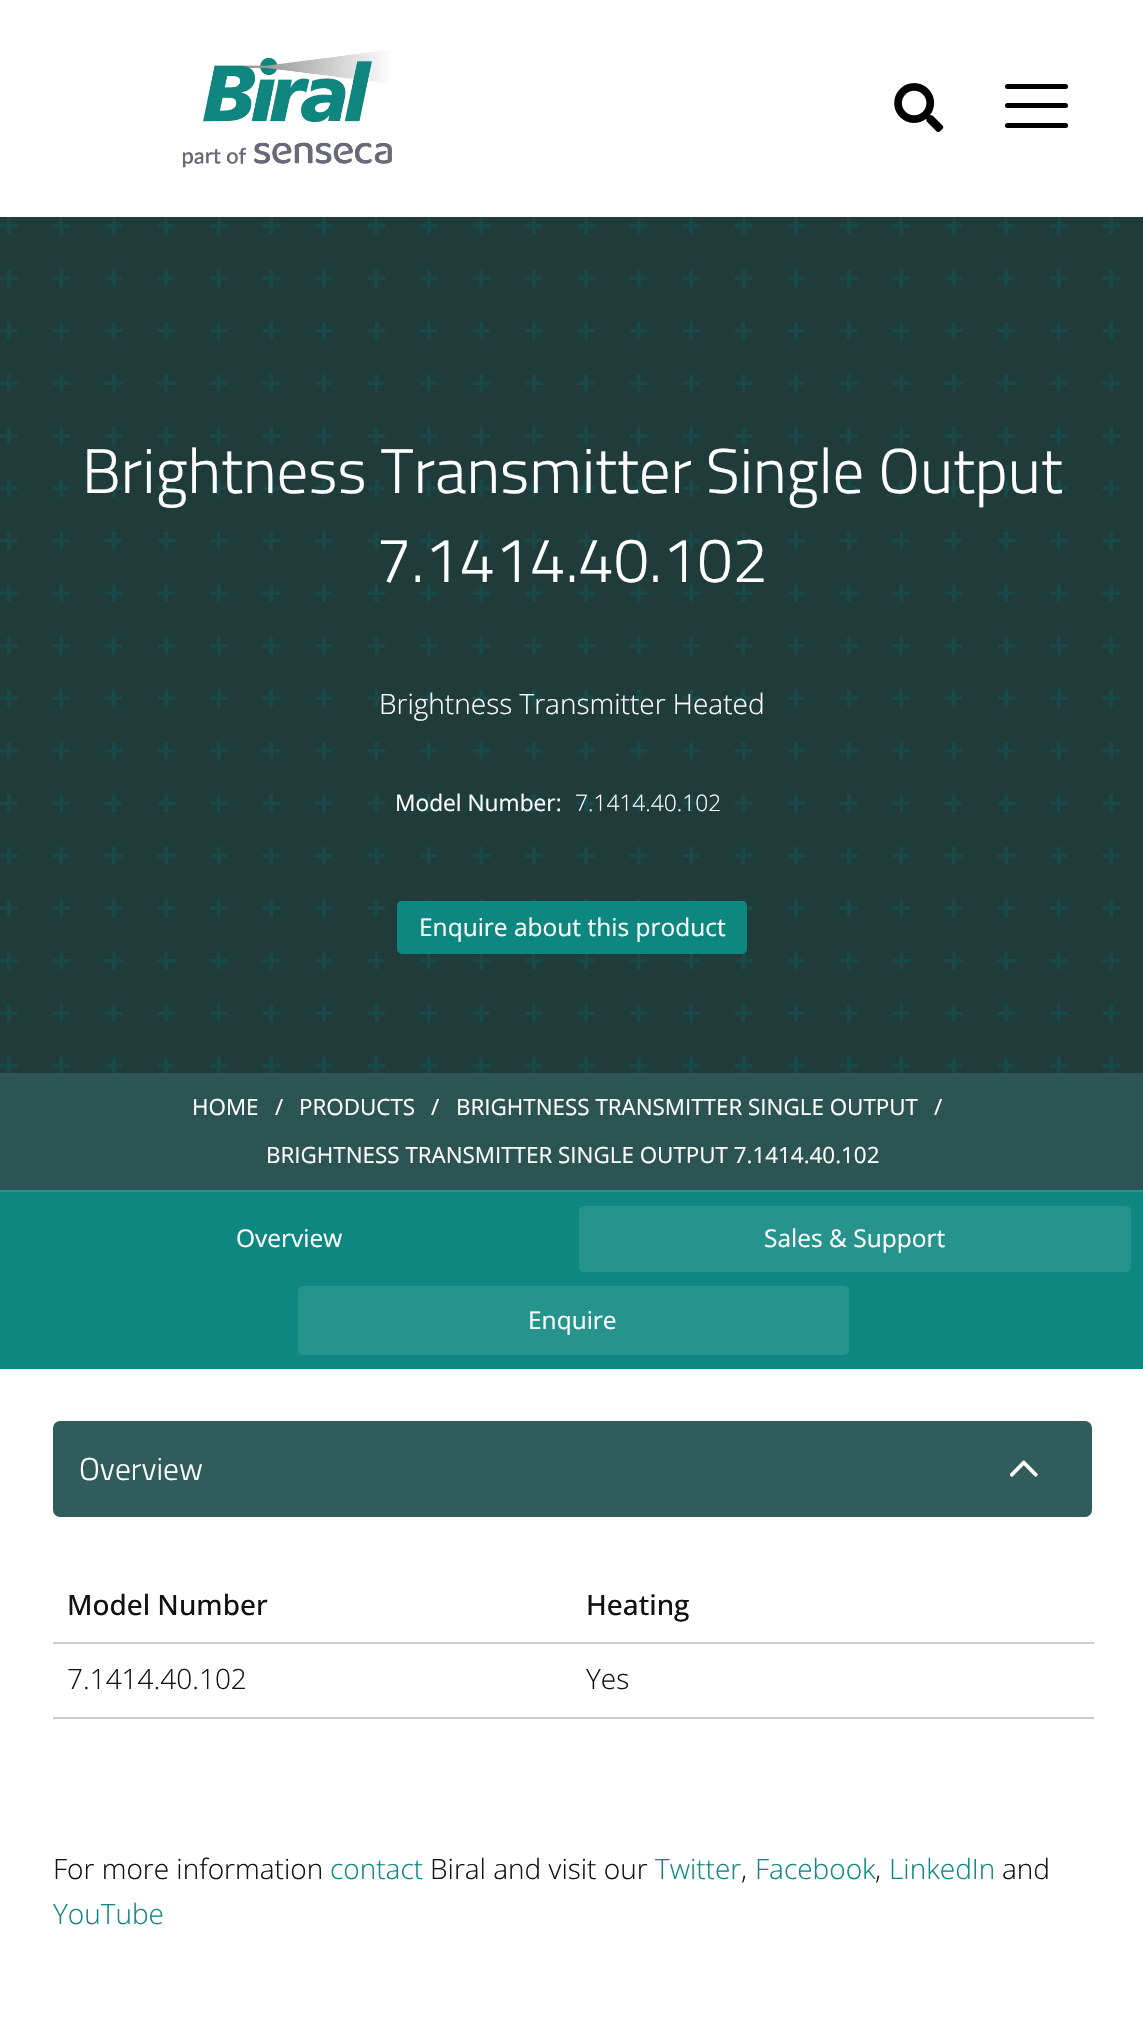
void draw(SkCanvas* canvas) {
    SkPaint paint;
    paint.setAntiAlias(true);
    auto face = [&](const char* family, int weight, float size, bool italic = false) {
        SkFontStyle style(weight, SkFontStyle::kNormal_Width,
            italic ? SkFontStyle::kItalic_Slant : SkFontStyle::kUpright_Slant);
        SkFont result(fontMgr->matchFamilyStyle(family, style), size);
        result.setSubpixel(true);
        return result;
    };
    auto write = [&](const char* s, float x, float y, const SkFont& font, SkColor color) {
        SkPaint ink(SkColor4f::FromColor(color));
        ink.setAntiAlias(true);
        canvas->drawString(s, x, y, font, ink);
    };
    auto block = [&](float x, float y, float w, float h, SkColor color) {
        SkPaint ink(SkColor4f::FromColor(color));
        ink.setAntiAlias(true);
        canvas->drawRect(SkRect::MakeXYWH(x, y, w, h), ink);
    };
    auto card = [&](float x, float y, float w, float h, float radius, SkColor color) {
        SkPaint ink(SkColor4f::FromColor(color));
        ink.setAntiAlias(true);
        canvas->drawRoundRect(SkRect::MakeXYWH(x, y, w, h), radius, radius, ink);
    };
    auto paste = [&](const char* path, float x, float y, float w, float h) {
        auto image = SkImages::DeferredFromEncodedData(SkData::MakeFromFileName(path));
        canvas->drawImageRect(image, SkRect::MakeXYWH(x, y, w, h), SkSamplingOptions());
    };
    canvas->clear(SK_ColorWHITE);
    paste("pic1.png", 182, 50, 210, 118);
    paste("pic2.png", 894, 83, 50, 50);
    card(1005, 84, 63, 5, 2.5f, SK_ColorBLACK);
    card(1005, 103, 63, 5, 2.5f, SK_ColorBLACK);
    card(1005, 123, 63, 5, 2.5f, SK_ColorBLACK);
    block(0, 217, 1143, 856, SkColorSetRGB(31, 60, 59));
    paste("pic3.png", 0, 217, 1120, 856);
    auto kFont1 = face("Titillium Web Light", 300, 63);
    write("Brightness Transmitter Single Output", 82, 493, kFont1, SK_ColorWHITE);
    write("7.1414.40.102", 376, 582, kFont1, SK_ColorWHITE);
    auto kFont2 = face("Open Sans", 300, 28);
    write("Brightness Transmitter Heated", 379, 714, kFont2, SK_ColorWHITE);
    auto kFont3 = face("Open Sans", 400, 22.75f);
    write("Model Number:", 395, 811, kFont3, SK_ColorWHITE);
    auto kFont4 = face("Open Sans", 300, 22.75f);
    write("7.1414.40.102", 575, 811, kFont4, SK_ColorWHITE);
    paint.setColor(SkColorSetRGB(14, 135, 128));
    canvas->drawRoundRect(SkRect::MakeXYWH(398, 902, 348, 51), 4, 4, paint);
    paint.setStyle(SkPaint::kStroke_Style);
    paint.setStrokeWidth(2);
    canvas->drawRoundRect(SkRect::MakeXYWH(398, 902, 348, 51), 4, 4, paint);
    auto kFont5 = face("Open Sans", 400, 24.5f);
    write("Enquire about this product", 419, 936, kFont5, SK_ColorWHITE);
    block(0, 1073, 1143, 117, SkColorSetRGB(43, 84, 82));
    auto kFont6 = face("Open Sans", 400, 22.4f);
    write("HOME", 192, 1115, kFont6, SK_ColorWHITE);
    write("/", 275, 1115, kFont6, SK_ColorWHITE);
    write("PRODUCTS", 299, 1115, kFont6, SK_ColorWHITE);
    write("/", 431, 1115, kFont6, SK_ColorWHITE);
    write("BRIGHTNESS TRANSMITTER SINGLE OUTPUT", 456, 1115, kFont6, SK_ColorWHITE);
    write("/", 934, 1115, kFont6, SK_ColorWHITE);
    write("BRIGHTNESS TRANSMITTER SINGLE OUTPUT 7.1414.40.102", 266, 1163, kFont6, SK_ColorWHITE);
    block(0, 1192, 1143, 177, SkColorSetRGB(14, 135, 128));
    block(0, 1190, 1143, 2, SkColorSetRGB(38, 147, 141));
    write("Overview", 236, 1247, kFont5, SK_ColorWHITE);
    card(579, 1206, 552, 66, 5, SkColorSetRGB(38, 147, 141));
    write("Sales & Support", 764, 1247, kFont5, SK_ColorWHITE);
    card(298, 1286, 551, 69, 5, SkColorSetRGB(38, 147, 141));
    write("Enquire", 528, 1329, kFont5, SK_ColorWHITE);
    card(53, 1421, 1039, 96, 7, SkColorSetRGB(48, 93, 91));
    auto kFont7 = face("Titillium Web Light", 300, 31.5f);
    write("Overview", 79, 1480, kFont7, SK_ColorWHITE);
    paste("pic4.png", 1010, 1460, 28, 17);
    block(53, 1642, 1041, 2, SkColorSetRGB(204, 204, 204));
    auto kFont8 = face("Open Sans", 500, 28);
    write("Model Number", 67, 1615, kFont8, SkColorSetRGB(17, 17, 17));
    write("Heating", 586, 1615, kFont8, SkColorSetRGB(17, 17, 17));
    block(53, 1717, 1041, 2, SkColorSetRGB(204, 204, 204));
    write("7.1414.40.102", 67, 1689, kFont2, SkColorSetRGB(17, 17, 17));
    write("Yes", 586, 1689, kFont2, SkColorSetRGB(17, 17, 17));
    write("For more information", 53, 1879, kFont2, SkColorSetRGB(17, 17, 17));
    write("contact", 330, 1879, kFont2, SkColorSetRGB(14, 135, 128));
    write("Biral and visit our", 430, 1879, kFont2, SkColorSetRGB(17, 17, 17));
    write("Twitter", 655, 1879, kFont2, SkColorSetRGB(14, 135, 128));
    write(",", 741, 1879, kFont2, SkColorSetRGB(17, 17, 17));
    write("Facebook", 755, 1879, kFont2, SkColorSetRGB(14, 135, 128));
    write(",", 875, 1879, kFont2, SkColorSetRGB(17, 17, 17));
    write("LinkedIn", 889, 1879, kFont2, SkColorSetRGB(14, 135, 128));
    write("and", 1002, 1879, kFont2, SkColorSetRGB(17, 17, 17));
    write("YouTube", 53, 1924, kFont2, SkColorSetRGB(14, 135, 128));
}
